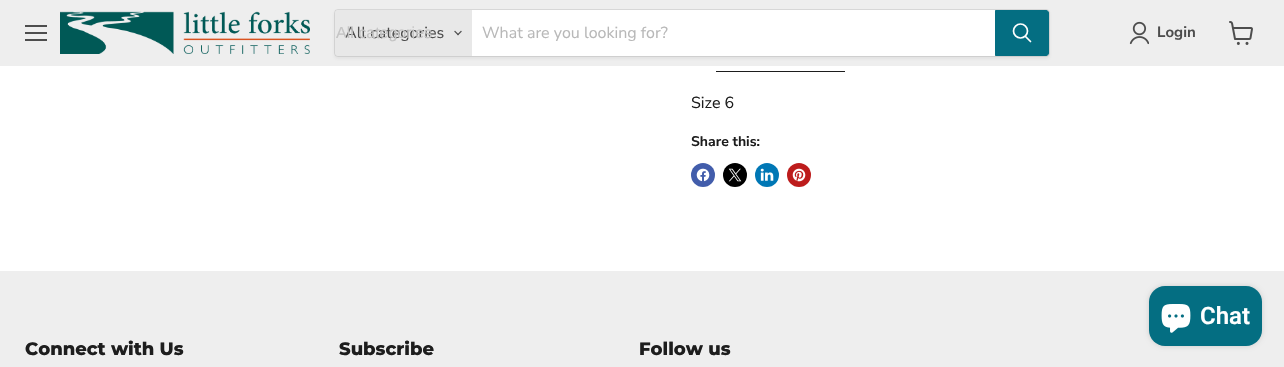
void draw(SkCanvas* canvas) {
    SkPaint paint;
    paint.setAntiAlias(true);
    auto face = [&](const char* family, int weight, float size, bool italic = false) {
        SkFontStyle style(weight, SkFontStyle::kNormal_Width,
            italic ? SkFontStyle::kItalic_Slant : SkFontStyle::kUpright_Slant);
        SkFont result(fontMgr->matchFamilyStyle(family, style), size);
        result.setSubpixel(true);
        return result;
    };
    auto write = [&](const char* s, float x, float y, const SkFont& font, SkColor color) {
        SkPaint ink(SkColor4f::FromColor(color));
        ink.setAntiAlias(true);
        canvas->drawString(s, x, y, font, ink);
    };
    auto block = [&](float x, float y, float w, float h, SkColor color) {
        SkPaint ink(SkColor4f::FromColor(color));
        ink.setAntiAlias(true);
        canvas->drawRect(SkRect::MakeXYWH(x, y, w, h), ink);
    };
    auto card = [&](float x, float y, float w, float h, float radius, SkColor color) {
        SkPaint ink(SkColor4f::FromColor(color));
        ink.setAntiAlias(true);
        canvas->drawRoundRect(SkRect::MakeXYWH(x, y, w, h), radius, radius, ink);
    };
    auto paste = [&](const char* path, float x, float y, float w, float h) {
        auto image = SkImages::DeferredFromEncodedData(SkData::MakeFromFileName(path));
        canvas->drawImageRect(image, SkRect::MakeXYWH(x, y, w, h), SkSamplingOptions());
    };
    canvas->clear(SK_ColorWHITE);
    block(0, 0, 1284, 66, SkColorSetRGB(238, 238, 238));
    block(25, 25, 22, 2, SkColorSetRGB(77, 77, 77));
    block(25, 32, 22, 2, SkColorSetRGB(77, 77, 77));
    block(25, 39, 22, 2, SkColorSetRGB(77, 77, 77));
    paste("pic1.png", 60, 11, 250, 43);
    paint.setColor(SkColorSetARGB(28, 128, 128, 128));
    paint.setMaskFilter(SkMaskFilter::MakeBlur(kNormal_SkBlurStyle, 1.5f));
    canvas->drawRoundRect(SkRect::MakeXYWH(334, 11, 716, 48), 4, 4, paint);
    paint.setMaskFilter(nullptr);
    paint.setStyle(SkPaint::kStroke_Style);
    paint.setStrokeWidth(1);
    paint.setColor(SkColorSetARGB(51, 128, 128, 128));
    canvas->drawRoundRect(SkRect::MakeXYWH(334.5f, 9.5f, 715, 47), 3.5f, 3.5f, paint);
    paint.setStyle(SkPaint::kFill_Style);
    paint.setColor(SkColorSetRGB(232, 232, 232));
    canvas->drawPath(SkPathBuilder().moveTo(338, 10).lineTo(472, 10).lineTo(472, 56).lineTo(338, 56).cubicTo(336.5f, 56, 335, 54.5f, 335, 53).lineTo(335, 13).cubicTo(335, 11.5f, 336.5f, 10, 338, 10).close().detach(), paint);
    auto kFont1 = face("Nunito Sans", 400, 16);
    write("All categories", 345, 38, kFont1, SkColorSetRGB(77, 77, 77));
    auto kFont2 = face("Liberation Sans", 400, 16);
    write("All categories", 336, 38, kFont2, SkColorSetRGB(196, 196, 196));
    paste("pic2.png", 454, 30, 8, 6);
    block(472, 10, 523, 46, SK_ColorWHITE);
    write("What are you looking for?", 482, 38, kFont1, SkColorSetRGB(184, 184, 184));
    paint.setColor(SkColorSetRGB(4, 110, 130));
    canvas->drawPath(SkPathBuilder().moveTo(995.5f, 10.5f).lineTo(1046, 10.5f).cubicTo(1047.5f, 10.5f, 1048.5f, 11.5f, 1048.5f, 13).lineTo(1048.5f, 53).cubicTo(1048.5f, 54.5f, 1047.5f, 55.5f, 1046, 55.5f).lineTo(995.5f, 55.5f).close().detach(), paint);
    paint.setStyle(SkPaint::kStroke_Style);
    canvas->drawPath(SkPathBuilder().moveTo(995.5f, 10.5f).lineTo(1046, 10.5f).cubicTo(1047.5f, 10.5f, 1048.5f, 11.5f, 1048.5f, 13).lineTo(1048.5f, 53).cubicTo(1048.5f, 54.5f, 1047.5f, 55.5f, 1046, 55.5f).lineTo(995.5f, 55.5f).close().detach(), paint);
    paint.setStrokeWidth(1.7f);
    paint.setStrokeCap(SkPaint::kRound_Cap);
    paint.setColor(SK_ColorWHITE);
    canvas->drawPath(SkPathBuilder().moveTo(1030.5f, 41.5f).lineTo(1025.5f, 36.5f).detach(), paint);
    paint.setStrokeCap(SkPaint::kButt_Cap);
    canvas->drawCircle(1020.5f, 31, 7, paint);
    paste("pic3.png", 1129, 21, 20, 24);
    auto kFont3 = face("Nunito Sans", 700, 15);
    write("Login", 1157, 37, kFont3, SkColorSetRGB(77, 77, 77));
    paste("pic4.png", 1229, 21, 24, 24);
    block(716, 71, 129, 1, SkColorSetRGB(29, 29, 29));
    write("Size 6", 691, 108, kFont1, SkColorSetRGB(29, 29, 29));
    auto kFont4 = face("Nunito Sans", 700, 14);
    write("Share this:", 691, 146, kFont4, SkColorSetRGB(29, 29, 29));
    paint.setStyle(SkPaint::kFill_Style);
    paint.setColor(SkColorSetRGB(66, 93, 171));
    canvas->drawCircle(703, 175, 12, paint);
    paste("pic5.png", 696, 168, 14, 14);
    paint.setColor(SK_ColorBLACK);
    canvas->drawCircle(735, 175, 12, paint);
    paste("pic6.png", 728, 168, 14, 14);
    paint.setColor(SkColorSetRGB(0, 119, 181));
    canvas->drawCircle(767, 175, 12, paint);
    paste("pic7.png", 760, 168, 14, 13);
    paint.setColor(SkColorSetRGB(189, 28, 28));
    canvas->drawCircle(799, 175, 12, paint);
    paste("pic8.png", 792, 168, 14, 14);
    block(0, 271, 1284, 96, SkColorSetRGB(238, 238, 238));
    paint.setColor(SkColorSetARGB(38, 0, 0, 0));
    paint.setMaskFilter(SkMaskFilter::MakeBlur(kNormal_SkBlurStyle, 2.5f));
    canvas->drawRoundRect(SkRect::MakeXYWH(1149, 286, 113, 60), 16, 16, paint);
    paint.setMaskFilter(nullptr);
    card(1149, 286, 113, 60, 16, SkColorSetRGB(4, 110, 130));
    paste("pic9.png", 1161, 304, 30, 29);
    auto kFont5 = face("Roboto", 600, 24);
    write("Chat", 1200, 324, kFont5, SK_ColorWHITE);
    auto kFont6 = face("Montserrat", 800, 18);
    write("Connect with Us", 25, 355, kFont6, SkColorSetRGB(29, 29, 29));
    write("Subscribe", 339, 355, kFont6, SkColorSetRGB(29, 29, 29));
    write("Follow us", 639, 355, kFont6, SkColorSetRGB(29, 29, 29));
}
